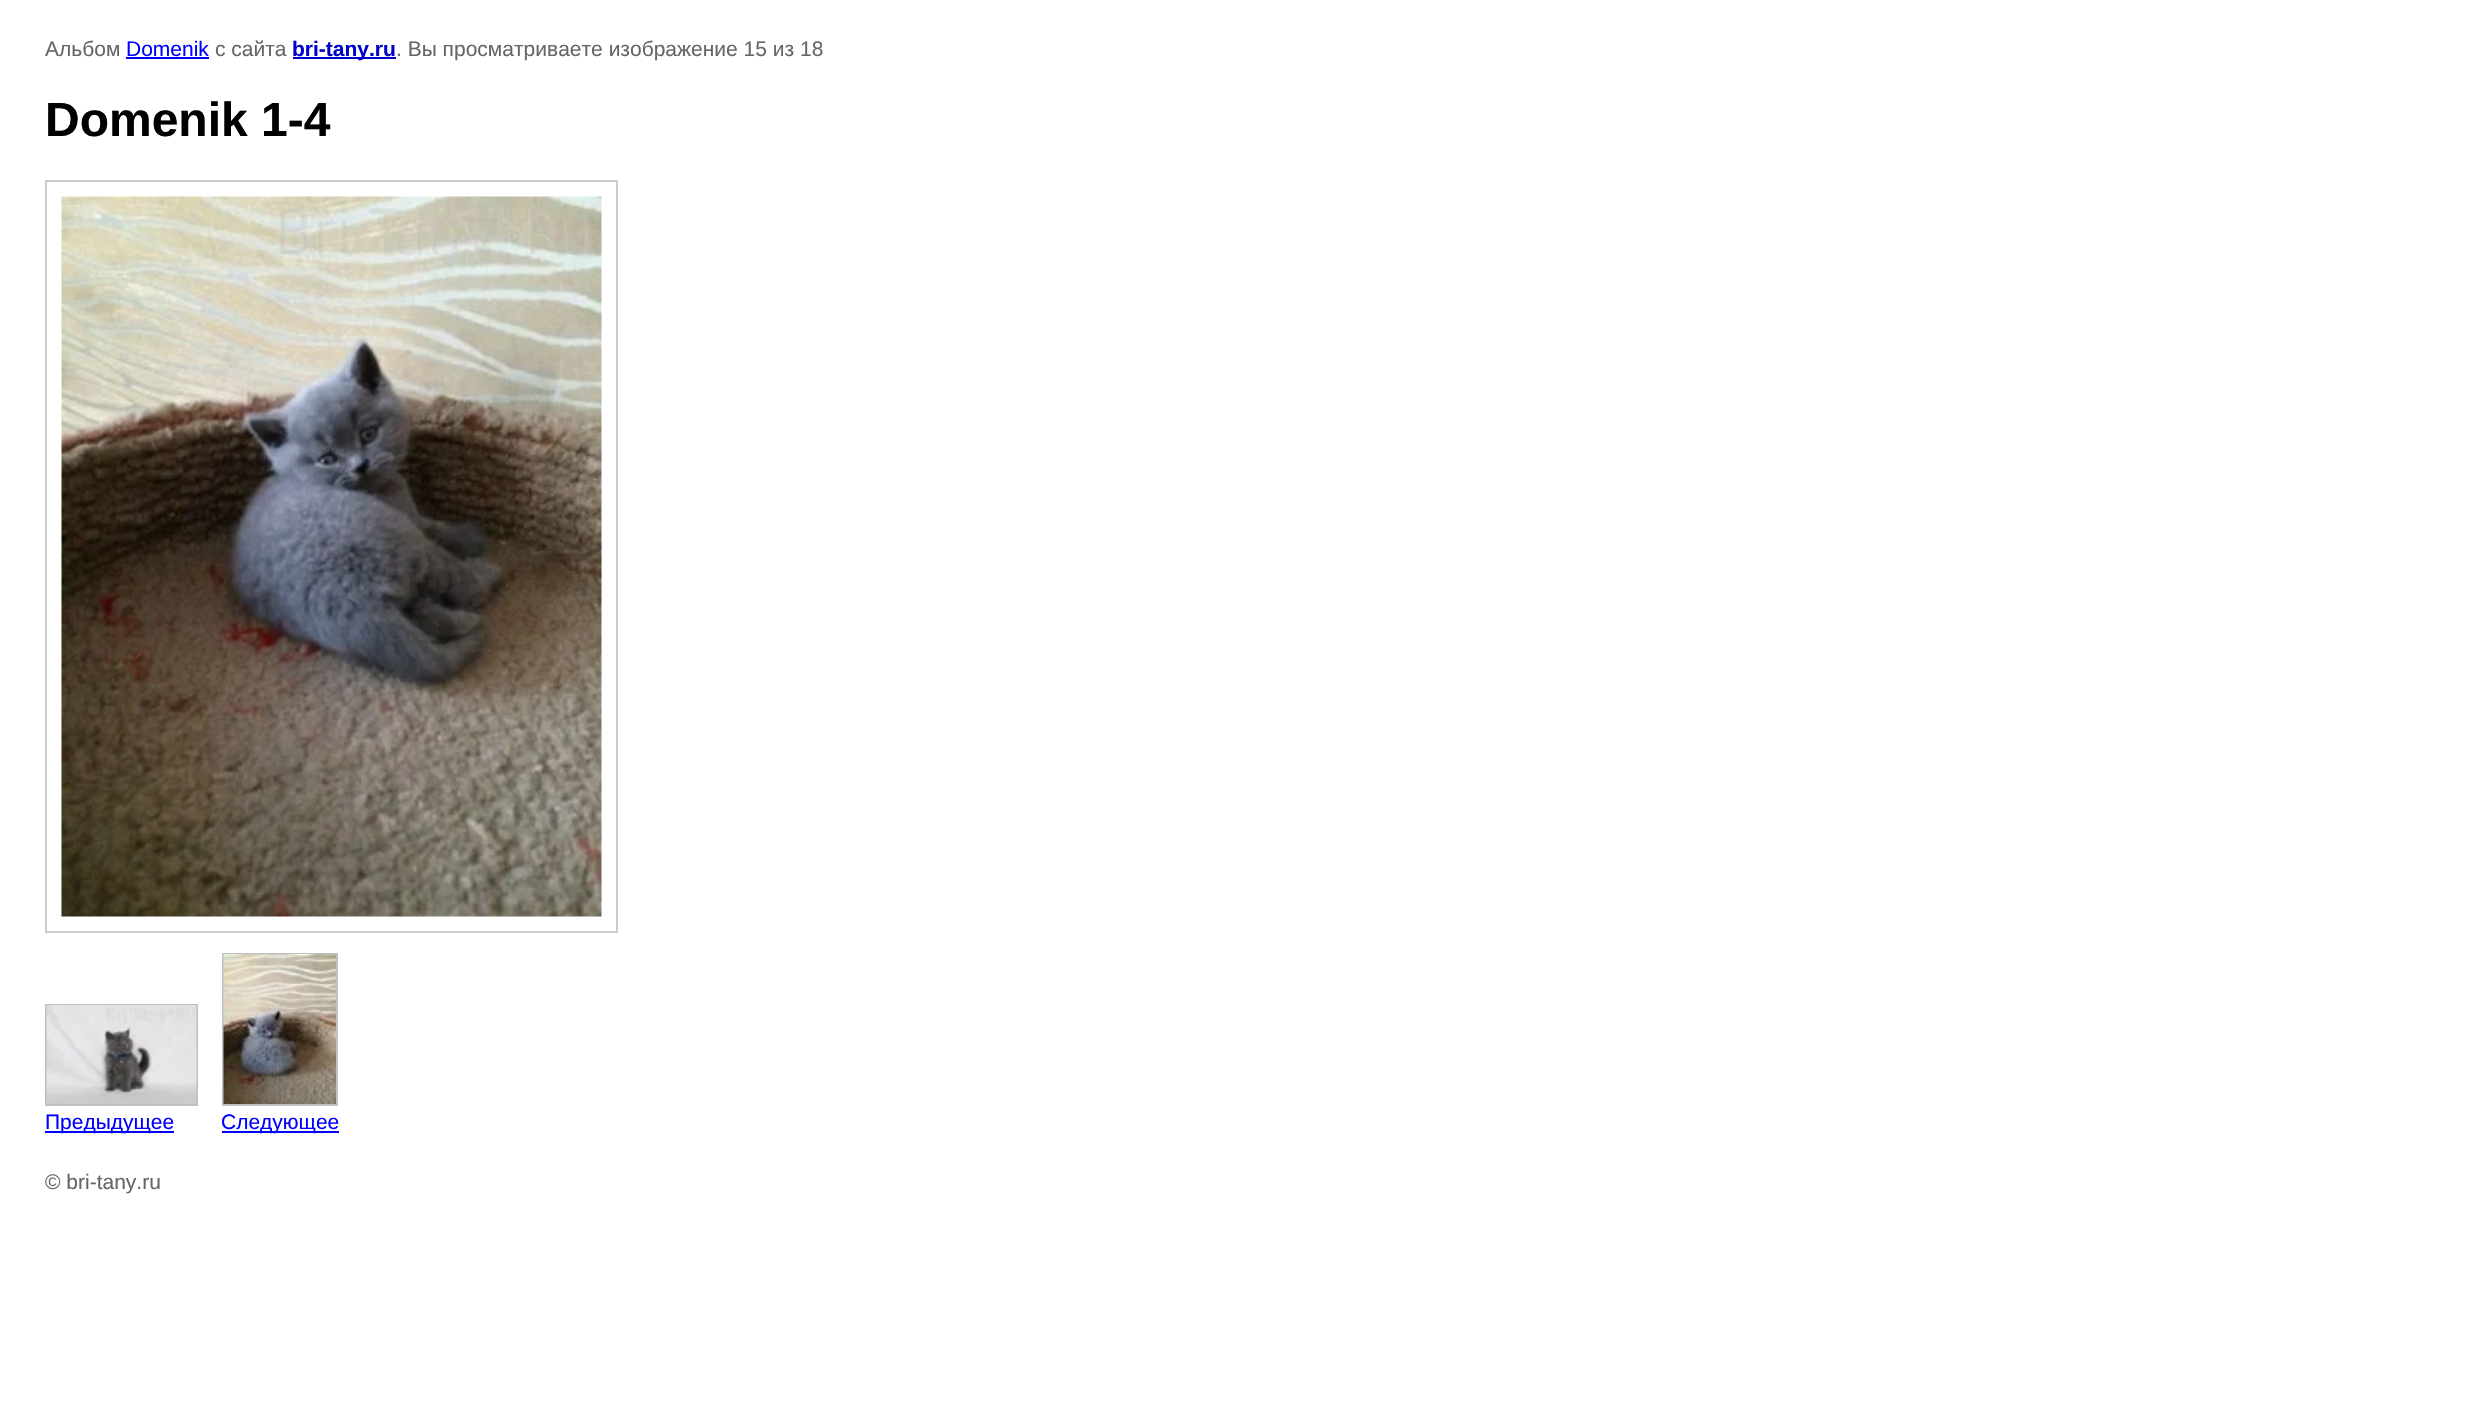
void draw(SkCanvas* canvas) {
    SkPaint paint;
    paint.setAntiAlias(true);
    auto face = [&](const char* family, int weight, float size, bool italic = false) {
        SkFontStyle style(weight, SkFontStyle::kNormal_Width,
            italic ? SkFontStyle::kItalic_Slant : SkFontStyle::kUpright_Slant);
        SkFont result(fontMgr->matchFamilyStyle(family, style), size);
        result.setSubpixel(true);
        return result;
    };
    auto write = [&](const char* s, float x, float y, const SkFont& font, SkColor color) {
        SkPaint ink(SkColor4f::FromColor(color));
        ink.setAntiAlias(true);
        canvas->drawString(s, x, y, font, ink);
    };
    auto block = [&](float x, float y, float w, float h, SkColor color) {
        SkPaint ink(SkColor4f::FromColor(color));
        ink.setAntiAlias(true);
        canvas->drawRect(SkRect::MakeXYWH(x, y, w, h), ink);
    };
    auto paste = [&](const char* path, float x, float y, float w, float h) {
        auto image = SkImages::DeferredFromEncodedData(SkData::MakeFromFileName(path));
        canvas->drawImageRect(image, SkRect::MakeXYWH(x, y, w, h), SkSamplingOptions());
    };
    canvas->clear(SK_ColorWHITE);
    auto kFont1 = face("Liberation Sans", 400, 21);
    write("Альбом", 45, 56, kFont1, SkColorSetRGB(102, 102, 102));
    write("Domenik", 126, 56, kFont1, SkColorSetRGB(0, 0, 255));
    block(126, 57, 83, 2, SkColorSetRGB(0, 0, 255));
    write("с сайта", 215, 56, kFont1, SkColorSetRGB(102, 102, 102));
    block(293, 57, 103, 2, SkColorSetRGB(0, 0, 204));
    auto kFont2 = face("Liberation Sans", 700, 21);
    write("bri-tany.ru", 292, 56, kFont2, SkColorSetRGB(0, 0, 204));
    write(". Вы просматриваете изображение 15 из 18", 396, 56, kFont1, SkColorSetRGB(102, 102, 102));
    auto kFont3 = face("Liberation Sans", 700, 48);
    write("Domenik 1-4", 45, 136, kFont3, SK_ColorBLACK);
    paint.setStyle(SkPaint::kStroke_Style);
    paint.setStrokeWidth(2);
    paint.setColor(SkColorSetRGB(204, 204, 204));
    canvas->drawRect(SkRect::MakeXYWH(46, 181, 571, 751), paint);
    paste("pic1.png", 61, 196, 541, 721);
    paint.setColor(SkColorSetRGB(192, 192, 192));
    canvas->drawRect(SkRect::MakeXYWH(46, 1005, 151, 100), paint);
    paste("pic2.png", 46, 1005, 151, 99);
    block(45, 1131, 129, 2, SkColorSetRGB(0, 0, 255));
    write("Предыдущее", 45, 1129, kFont1, SkColorSetRGB(0, 0, 255));
    canvas->drawRect(SkRect::MakeXYWH(223, 954, 114, 151), paint);
    paste("pic3.png", 223, 954, 113, 150);
    block(222, 1131, 117, 2, SkColorSetRGB(0, 0, 255));
    write("Следующее", 221, 1129, kFont1, SkColorSetRGB(0, 0, 255));
    write("© bri-tany.ru", 45, 1189, kFont1, SkColorSetRGB(102, 102, 102));
}
